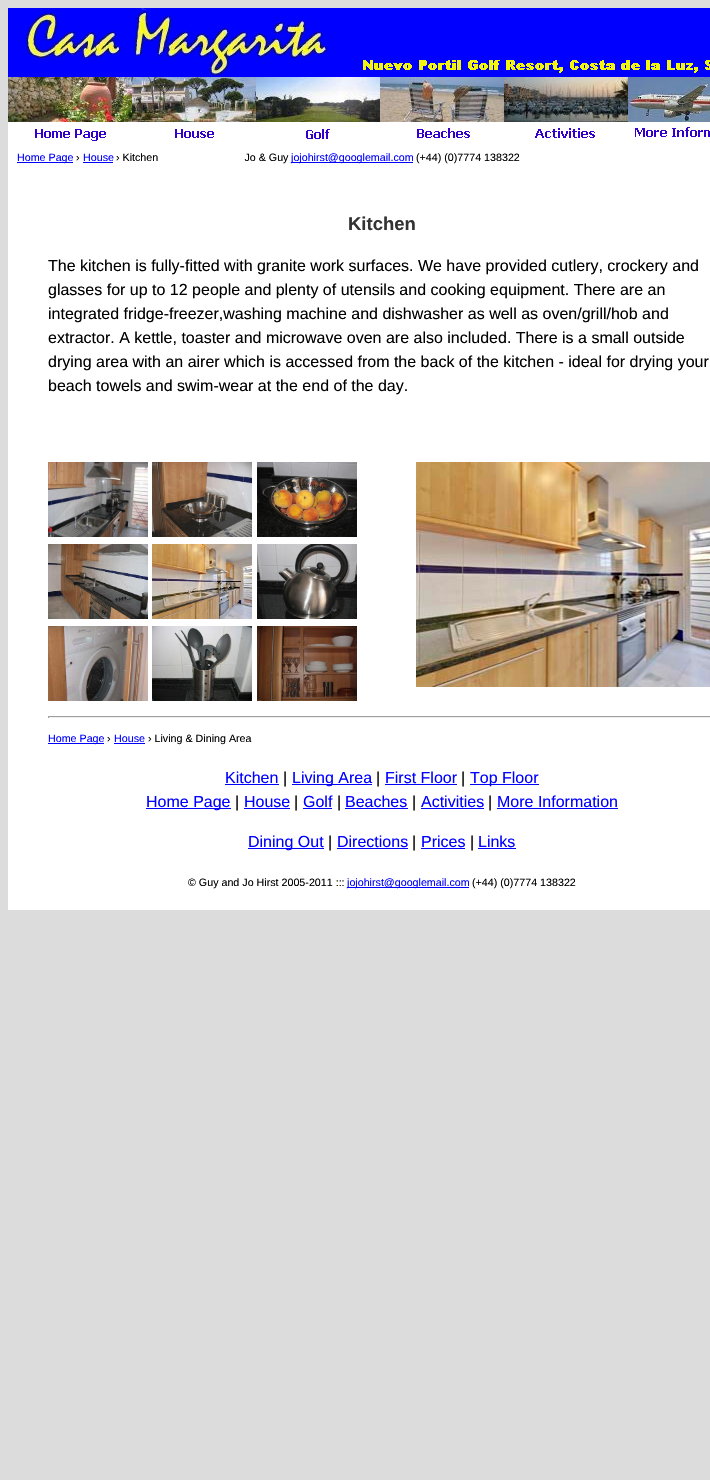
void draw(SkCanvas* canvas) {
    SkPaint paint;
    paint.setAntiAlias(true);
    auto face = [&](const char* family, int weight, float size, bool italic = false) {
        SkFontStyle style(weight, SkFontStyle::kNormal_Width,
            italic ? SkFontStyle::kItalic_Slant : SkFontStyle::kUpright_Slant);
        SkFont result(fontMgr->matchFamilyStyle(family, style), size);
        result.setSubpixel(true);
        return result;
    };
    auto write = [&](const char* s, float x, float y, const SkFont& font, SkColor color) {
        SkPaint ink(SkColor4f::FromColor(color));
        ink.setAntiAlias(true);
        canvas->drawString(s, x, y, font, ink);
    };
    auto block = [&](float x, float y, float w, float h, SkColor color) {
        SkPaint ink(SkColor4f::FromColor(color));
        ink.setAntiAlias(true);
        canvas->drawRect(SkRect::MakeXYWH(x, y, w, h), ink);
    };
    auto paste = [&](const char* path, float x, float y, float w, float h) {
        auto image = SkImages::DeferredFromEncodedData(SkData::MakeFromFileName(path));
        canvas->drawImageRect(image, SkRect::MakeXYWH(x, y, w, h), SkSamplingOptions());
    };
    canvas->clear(SkColorSetRGB(220, 220, 220));
    block(8, 8, 702, 69, SkColorSetRGB(0, 0, 255));
    paste("pic1.png", 25, 8, 685, 68);
    paste("pic2.png", 8, 77, 124, 45);
    paste("pic3.png", 132, 77, 124, 45);
    paste("pic4.png", 256, 77, 124, 45);
    paste("pic5.png", 380, 77, 124, 45);
    paste("pic6.png", 504, 77, 124, 45);
    paste("pic7.png", 628, 77, 82, 45);
    paste("pic8.png", 8, 122, 124, 23);
    paste("pic9.png", 132, 122, 124, 23);
    paste("pic10.png", 256, 122, 124, 23);
    paste("pic11.png", 380, 122, 124, 23);
    block(504, 122, 124, 23, SK_ColorWHITE);
    paste("pic12.png", 535, 128, 60, 10);
    paste("pic13.png", 628, 122, 82, 23);
    block(8, 145, 702, 765, SK_ColorWHITE);
    block(17, 162, 56, 1, SkColorSetRGB(0, 0, 255));
    auto kFont1 = face("Liberation Sans", 400, 10.7f);
    write("Home Page", 17, 161, kFont1, SkColorSetRGB(0, 0, 255));
    write("›", 76, 161, kFont1, SK_ColorBLACK);
    write("House", 83, 161, kFont1, SkColorSetRGB(0, 0, 255));
    block(83, 162, 30, 1, SkColorSetRGB(0, 0, 255));
    write("› Kitchen                             Jo & Guy", 116, 161, kFont1, SK_ColorBLACK);
    block(291, 162, 122, 1, SkColorSetRGB(0, 0, 255));
    write("jojohirst@googlemail.com", 291, 161, kFont1, SkColorSetRGB(0, 0, 255));
    write("(+44) (0)7774 138322", 416, 161, kFont1, SK_ColorBLACK);
    auto kFont2 = face("Liberation Sans", 700, 18.5f);
    write("Kitchen", 348, 230, kFont2, SkColorSetRGB(51, 51, 51));
    auto kFont3 = face("Liberation Sans", 400, 16);
    write("The kitchen is fully-fitted with granite work surfaces. We have provided cutlery, crockery and", 48, 271, kFont3, SK_ColorBLACK);
    write("glasses for up to 12 people and plenty of utensils and cooking equipment. There are an", 48, 295, kFont3, SK_ColorBLACK);
    write("integrated fridge-freezer,washing machine and dishwasher as well as oven/grill/hob and", 48, 319, kFont3, SK_ColorBLACK);
    write("extractor. A kettle, toaster and microwave oven are also included. There is a small outside", 48, 343, kFont3, SK_ColorBLACK);
    write("drying area with an airer which is accessed from the back of the kitchen - ideal for drying your", 48, 367, kFont3, SK_ColorBLACK);
    write("beach towels and swim-wear at the end of the day.", 48, 391, kFont3, SK_ColorBLACK);
    paste("pic14.png", 48, 462, 100, 75);
    paste("pic15.png", 152, 462, 100, 75);
    paste("pic16.png", 257, 462, 100, 75);
    paste("pic17.png", 416, 462, 294, 225);
    paste("pic18.png", 48, 544, 100, 75);
    paste("pic19.png", 152, 544, 100, 75);
    paste("pic20.png", 257, 544, 100, 75);
    paste("pic21.png", 48, 626, 100, 75);
    paste("pic22.png", 152, 626, 100, 75);
    paste("pic23.png", 257, 626, 100, 75);
    block(48, 716, 662, 1, SkColorSetRGB(159, 159, 159));
    block(48, 717, 662, 1, SkColorSetRGB(238, 238, 238));
    block(48, 716, 1, 2, SkColorSetRGB(159, 159, 159));
    block(48, 743, 56, 1, SkColorSetRGB(0, 0, 255));
    write("Home Page", 48, 742, kFont1, SkColorSetRGB(0, 0, 255));
    write("›", 107, 742, kFont1, SK_ColorBLACK);
    write("House", 114, 742, kFont1, SkColorSetRGB(0, 0, 255));
    block(114, 743, 31, 1, SkColorSetRGB(0, 0, 255));
    write("› Living & Dining Area", 148, 742, kFont1, SK_ColorBLACK);
    write("Kitchen", 225, 783, kFont3, SkColorSetRGB(0, 0, 255));
    block(225, 784, 54, 1, SkColorSetRGB(0, 0, 255));
    write("|", 283, 783, kFont3, SK_ColorBLACK);
    block(292, 784, 80, 1, SkColorSetRGB(0, 0, 255));
    write("Living Area", 292, 783, kFont3, SkColorSetRGB(0, 0, 255));
    write("|", 376, 783, kFont3, SK_ColorBLACK);
    write("First Floor", 385, 783, kFont3, SkColorSetRGB(0, 0, 255));
    block(385, 784, 72, 1, SkColorSetRGB(0, 0, 255));
    write("|", 461, 783, kFont3, SK_ColorBLACK);
    block(470, 784, 69, 1, SkColorSetRGB(0, 0, 255));
    write("Top Floor", 470, 783, kFont3, SkColorSetRGB(0, 0, 255));
    block(146, 808, 85, 1, SkColorSetRGB(0, 0, 255));
    write("Home Page", 146, 807, kFont3, SkColorSetRGB(0, 0, 255));
    write("|", 235, 807, kFont3, SK_ColorBLACK);
    write("House", 244, 807, kFont3, SkColorSetRGB(0, 0, 255));
    block(244, 808, 46, 1, SkColorSetRGB(0, 0, 255));
    write("|", 294, 807, kFont3, SK_ColorBLACK);
    write("Golf", 303, 807, kFont3, SkColorSetRGB(0, 0, 255));
    block(303, 808, 29, 1, SkColorSetRGB(0, 0, 255));
    write("|", 337, 807, kFont3, SK_ColorBLACK);
    write("Beaches", 345, 807, kFont3, SkColorSetRGB(0, 0, 255));
    block(345, 808, 63, 1, SkColorSetRGB(0, 0, 255));
    write("|", 412, 807, kFont3, SK_ColorBLACK);
    write("Activities", 421, 807, kFont3, SkColorSetRGB(0, 0, 255));
    block(421, 808, 63, 1, SkColorSetRGB(0, 0, 255));
    write("|", 488, 807, kFont3, SK_ColorBLACK);
    write("More Information", 497, 807, kFont3, SkColorSetRGB(0, 0, 255));
    block(497, 808, 121, 1, SkColorSetRGB(0, 0, 255));
    block(248, 848, 76, 1, SkColorSetRGB(0, 0, 255));
    write("Dining Out", 248, 847, kFont3, SkColorSetRGB(0, 0, 255));
    write("|", 328, 847, kFont3, SK_ColorBLACK);
    write("Directions", 337, 847, kFont3, SkColorSetRGB(0, 0, 255));
    block(337, 848, 71, 1, SkColorSetRGB(0, 0, 255));
    write("|", 412, 847, kFont3, SK_ColorBLACK);
    write("Prices", 421, 847, kFont3, SkColorSetRGB(0, 0, 255));
    block(421, 848, 44, 1, SkColorSetRGB(0, 0, 255));
    write("|", 470, 847, kFont3, SK_ColorBLACK);
    write("Links", 478, 847, kFont3, SkColorSetRGB(0, 0, 255));
    block(478, 848, 38, 1, SkColorSetRGB(0, 0, 255));
    write("© Guy and Jo Hirst 2005-2011 :::", 188, 886, kFont1, SK_ColorBLACK);
    block(347, 887, 122, 1, SkColorSetRGB(0, 0, 255));
    write("jojohirst@googlemail.com", 347, 886, kFont1, SkColorSetRGB(0, 0, 255));
    write("(+44) (0)7774 138322", 472, 886, kFont1, SK_ColorBLACK);
}
